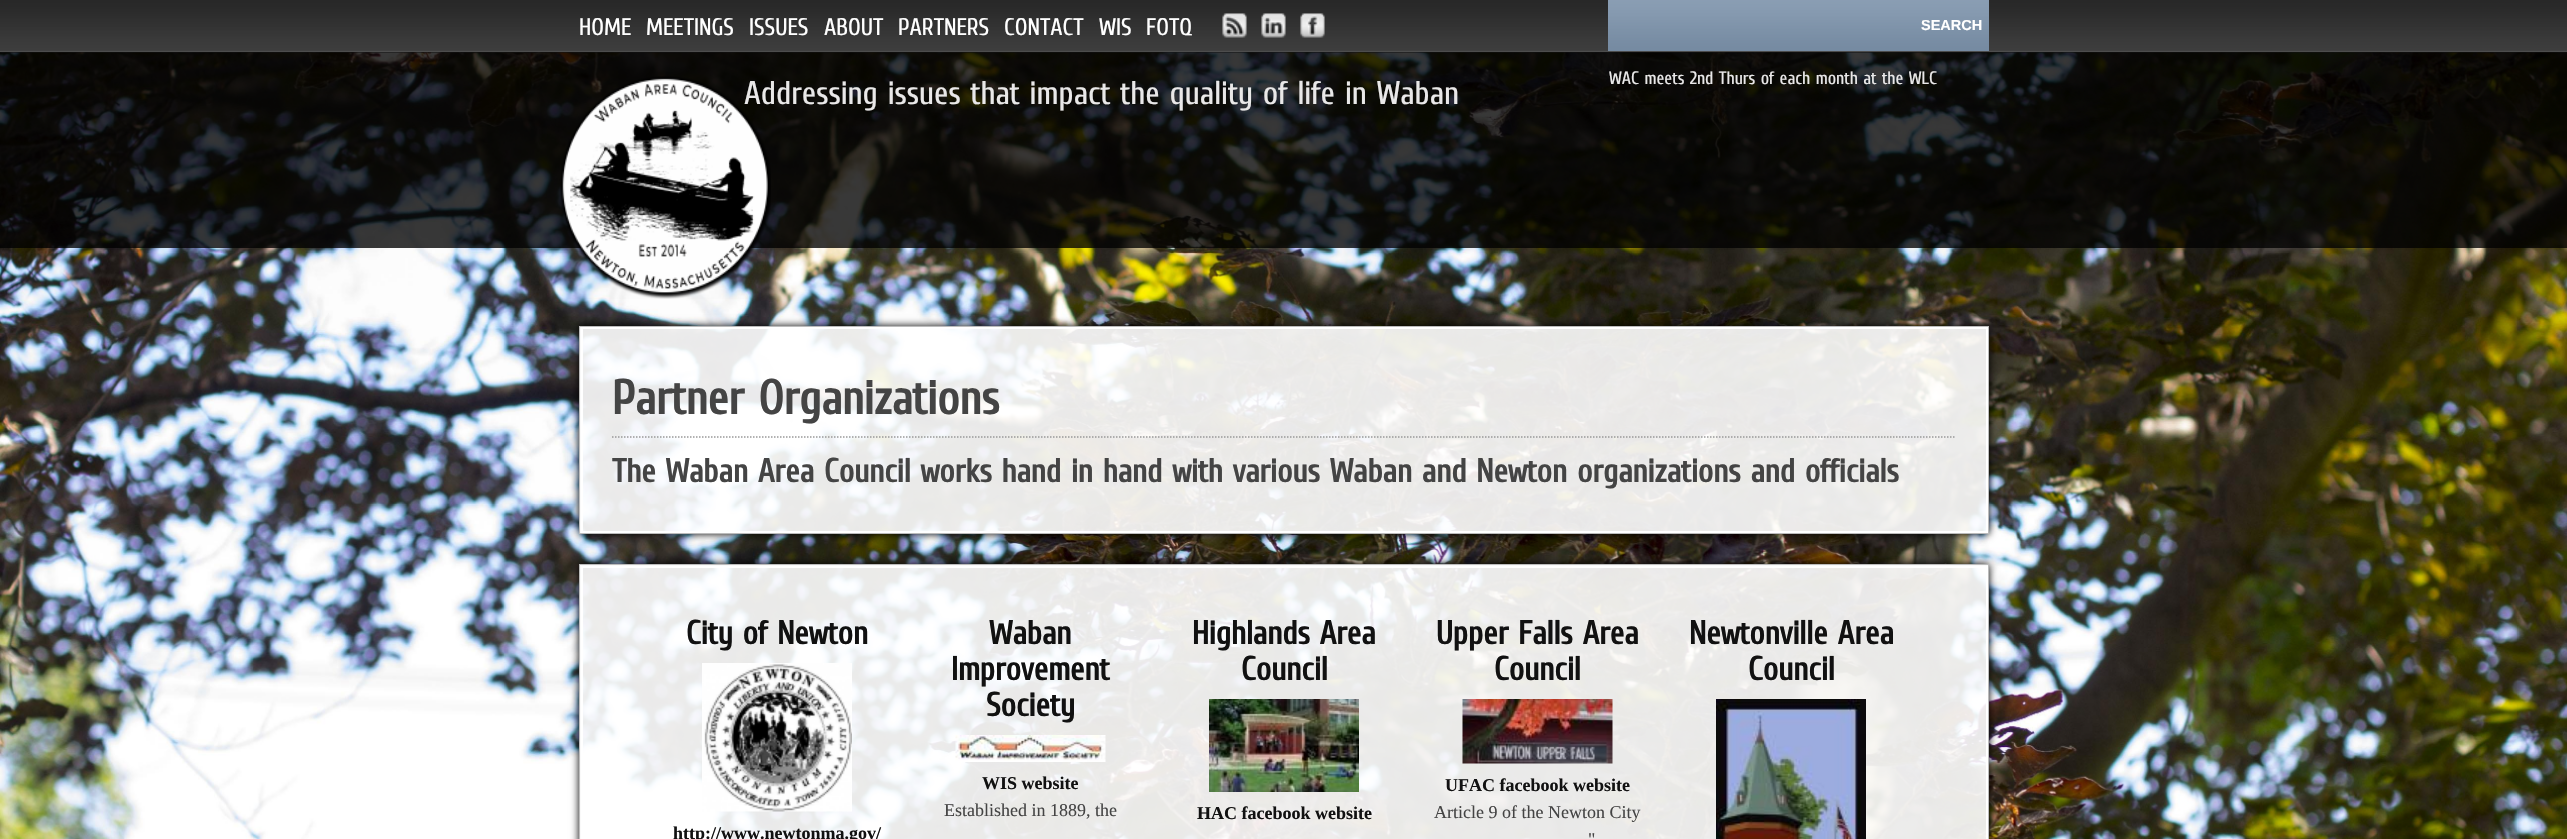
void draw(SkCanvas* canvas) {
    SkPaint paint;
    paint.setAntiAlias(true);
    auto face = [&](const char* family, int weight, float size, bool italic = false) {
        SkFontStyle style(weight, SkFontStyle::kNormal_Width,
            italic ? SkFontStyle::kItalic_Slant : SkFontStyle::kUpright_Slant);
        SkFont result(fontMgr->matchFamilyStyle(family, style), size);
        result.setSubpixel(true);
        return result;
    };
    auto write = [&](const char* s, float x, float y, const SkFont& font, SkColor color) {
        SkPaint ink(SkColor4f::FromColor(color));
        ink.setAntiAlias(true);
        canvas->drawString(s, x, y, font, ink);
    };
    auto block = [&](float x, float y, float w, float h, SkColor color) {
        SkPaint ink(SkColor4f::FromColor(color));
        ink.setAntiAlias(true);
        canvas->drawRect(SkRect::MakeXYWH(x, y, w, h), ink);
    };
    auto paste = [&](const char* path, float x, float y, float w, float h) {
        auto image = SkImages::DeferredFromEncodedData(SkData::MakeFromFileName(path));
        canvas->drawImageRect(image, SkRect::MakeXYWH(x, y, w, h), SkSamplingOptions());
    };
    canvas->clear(SK_ColorWHITE);
    paste("pic12.png", 0, 52, 2567, 787);
    paste("pic1.png", 0, 0, 2567, 53);
    auto kFont1 = face("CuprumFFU", 400, 24);
    write("HOME", 579, 35, kFont1, SK_ColorWHITE);
    write("MEETINGS", 646, 35, kFont1, SK_ColorWHITE);
    write("ISSUES", 749, 35, kFont1, SK_ColorWHITE);
    write("ABOUT", 824, 35, kFont1, SK_ColorWHITE);
    write("PARTNERS", 898, 35, kFont1, SK_ColorWHITE);
    write("CONTACT", 1004, 35, kFont1, SK_ColorWHITE);
    write("WIS", 1099, 35, kFont1, SK_ColorWHITE);
    write("FOTQ", 1146, 35, kFont1, SK_ColorWHITE);
    paste("pic2.png", 1222, 13, 25, 25);
    paste("pic3.png", 1261, 13, 25, 25);
    paste("pic4.png", 1300, 13, 25, 25);
    paste("pic5.png", 1608, 0, 381, 51);
    auto kFont2 = face("Liberation Sans", 700, 14.5f);
    write("SEARCH", 1921, 30, kFont2, SK_ColorWHITE);
    block(0, 52, 2567, 196, SkColorSetARGB(199, 0, 0, 0));
    auto kFont3 = face("CuprumFFU", 400, 18);
    write("WAC meets 2nd Thurs of each month at the WLC", 1609, 84, kFont3, SkColorSetRGB(233, 232, 232));
    paste("pic6.png", 560, 76, 211, 223);
    auto kFont4 = face("CuprumFFU", 400, 33);
    write("Addressing issues that impact the quality of life in Waban", 744, 104, kFont4, SkColorSetRGB(233, 232, 232));
    canvas->save();
    canvas->clipPath(SkPathBuilder(SkPathFillType::kEvenOdd).moveTo(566, 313).lineTo(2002, 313).lineTo(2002, 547).lineTo(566, 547).close().moveTo(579, 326).lineTo(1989, 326).lineTo(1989, 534).lineTo(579, 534).close().detach(), true);
    paint.setColor(SK_ColorBLACK);
    paint.setMaskFilter(SkMaskFilter::MakeBlur(kNormal_SkBlurStyle, 4));
    canvas->drawRect(SkRect::MakeXYWH(579, 326, 1410, 208), paint);
    paint.setMaskFilter(nullptr);
    canvas->restore();
    paint.setStyle(SkPaint::kStroke_Style);
    paint.setStrokeWidth(2);
    paint.setColor(SkColorSetRGB(187, 187, 187));
    canvas->drawRect(SkRect::MakeXYWH(580, 327, 1408, 206), paint);
    block(580, 327, 1406, 206, SkColorSetARGB(230, 255, 255, 255));
    paint.setColor(SK_ColorWHITE);
    canvas->drawRect(SkRect::MakeXYWH(582, 328, 1405, 204), paint);
    paint.setStrokeWidth(1.5f);
    paint.setColor(SkColorSetRGB(153, 153, 153));
    paint.setPathEffect(SkDashPathEffect::Make({{1.5f, 1.5f}}, 0));
    canvas->drawPath(SkPathBuilder().moveTo(612, 437).lineTo(1956, 437).detach(), paint);
    paint.setPathEffect(nullptr);
    auto kFont5 = face("CuprumFFU", 700, 48);
    write("Partner Organizations", 612, 414, kFont5, SkColorSetRGB(68, 68, 68));
    auto kFont6 = face("CuprumFFU", 700, 33);
    write("The Waban Area Council works hand in hand with various Waban and Newton organizations and officials", 612, 482, kFont6, SkColorSetRGB(68, 68, 68));
    canvas->save();
    canvas->clipPath(SkPathBuilder(SkPathFillType::kEvenOdd).moveTo(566, 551).lineTo(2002, 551).lineTo(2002, 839).lineTo(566, 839).close().moveTo(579, 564).lineTo(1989, 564).lineTo(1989, 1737).lineTo(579, 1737).close().detach(), true);
    paint.setStyle(SkPaint::kFill_Style);
    paint.setColor(SK_ColorBLACK);
    paint.setMaskFilter(SkMaskFilter::MakeBlur(kNormal_SkBlurStyle, 4));
    canvas->drawRect(SkRect::MakeXYWH(579, 564, 1410, 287), paint);
    paint.setMaskFilter(nullptr);
    canvas->restore();
    paint.setStyle(SkPaint::kStroke_Style);
    paint.setStrokeWidth(2);
    paint.setColor(SkColorSetRGB(187, 187, 187));
    canvas->drawRect(SkRect::MakeXYWH(580, 565, 1408, 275), paint);
    block(580, 565, 1408, 274, SkColorSetARGB(230, 255, 255, 255));
    paint.setColor(SK_ColorWHITE);
    canvas->drawRect(SkRect::MakeXYWH(582, 567, 1405, 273), paint);
    write("City of Newton", 686, 644, kFont6, SkColorSetRGB(17, 17, 17));
    paste("pic7.png", 702, 663, 150, 149);
    auto kFont7 = face("Liberation Serif", 700, 18);
    write("http://www.newtonma.gov/", 673, 839, kFont7, SkColorSetRGB(17, 17, 17));
    write("Waban", 989, 644, kFont6, SkColorSetRGB(17, 17, 17));
    write("Improvement", 951, 680, kFont6, SkColorSetRGB(17, 17, 17));
    write("Society", 986, 716, kFont6, SkColorSetRGB(17, 17, 17));
    paste("pic8.png", 955, 735, 151, 27);
    write("WIS website", 982, 789, kFont7, SkColorSetRGB(17, 17, 17));
    auto kFont8 = face("Liberation Serif", 400, 18);
    write("Established in 1889, the", 944, 816, kFont8, SkColorSetRGB(68, 68, 68));
    write("Highlands Area", 1192, 644, kFont6, SkColorSetRGB(17, 17, 17));
    write("Council", 1241, 680, kFont6, SkColorSetRGB(17, 17, 17));
    paste("pic9.png", 1209, 699, 150, 93);
    write("HAC facebook website", 1197, 819, kFont7, SkColorSetRGB(17, 17, 17));
    write("Upper Falls Area", 1436, 644, kFont6, SkColorSetRGB(17, 17, 17));
    write("Council", 1494, 680, kFont6, SkColorSetRGB(17, 17, 17));
    paste("pic10.png", 1462, 699, 151, 65);
    write("UFAC facebook website", 1445, 791, kFont7, SkColorSetRGB(17, 17, 17));
    write("Article 9 of the Newton City", 1434, 818, kFont8, SkColorSetRGB(68, 68, 68));
    write("\"", 1588, 845, kFont8, SkColorSetRGB(68, 68, 68));
    write("Newtonville Area", 1689, 644, kFont6, SkColorSetRGB(17, 17, 17));
    write("Council", 1748, 680, kFont6, SkColorSetRGB(17, 17, 17));
    paste("pic11.png", 1716, 699, 150, 140);
}
